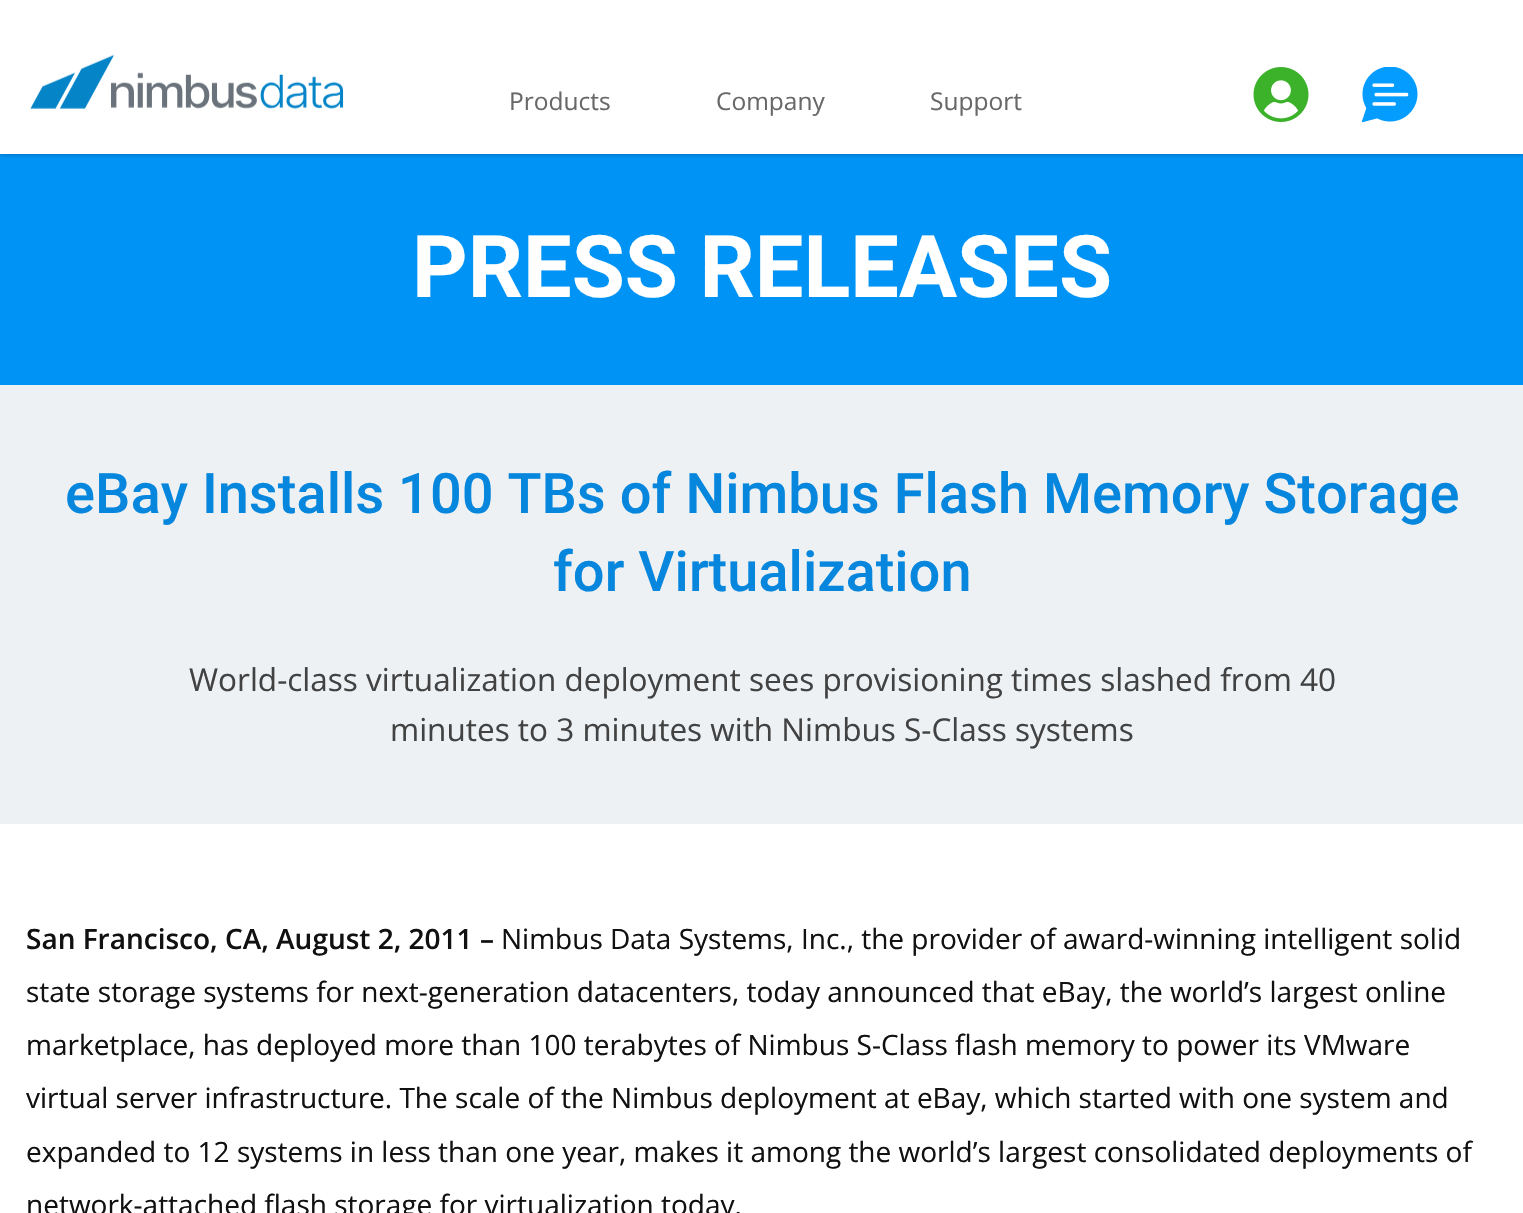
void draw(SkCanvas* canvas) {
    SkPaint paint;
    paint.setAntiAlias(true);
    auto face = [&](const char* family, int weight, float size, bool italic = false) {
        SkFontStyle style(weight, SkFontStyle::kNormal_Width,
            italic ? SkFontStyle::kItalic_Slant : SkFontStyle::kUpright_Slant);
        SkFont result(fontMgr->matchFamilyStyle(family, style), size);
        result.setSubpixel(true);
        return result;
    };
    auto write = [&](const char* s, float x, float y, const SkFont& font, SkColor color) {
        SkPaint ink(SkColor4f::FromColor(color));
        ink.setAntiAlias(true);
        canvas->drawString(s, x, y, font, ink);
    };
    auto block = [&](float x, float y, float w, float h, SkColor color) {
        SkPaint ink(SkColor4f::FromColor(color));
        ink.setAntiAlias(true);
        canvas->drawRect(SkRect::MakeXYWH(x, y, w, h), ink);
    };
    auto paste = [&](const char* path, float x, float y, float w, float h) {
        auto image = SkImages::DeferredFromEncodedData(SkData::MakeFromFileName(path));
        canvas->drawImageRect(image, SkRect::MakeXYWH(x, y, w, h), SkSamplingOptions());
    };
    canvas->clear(SkColorSetRGB(237, 241, 244));
    block(0, 154, 1523, 231, SkColorSetRGB(0, 147, 246));
    paint.setColor(SkColorSetARGB(84, 0, 0, 0));
    paint.setMaskFilter(SkMaskFilter::MakeBlur(kNormal_SkBlurStyle, 2.5f));
    canvas->drawRect(SkRect::MakeXYWH(0, 0, 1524, 154), paint);
    paint.setMaskFilter(nullptr);
    block(0, 0, 1523, 154, SK_ColorWHITE);
    paste("pic1.png", 30, 54, 314, 55);
    auto kFont1 = face("Open Sans", 400, 24.5f);
    write("Products", 509, 110, kFont1, SkColorSetRGB(104, 104, 104));
    write("Company", 716, 110, kFont1, SkColorSetRGB(104, 104, 104));
    write("Support", 930, 110, kFont1, SkColorSetRGB(104, 104, 104));
    paste("pic2.png", 1253, 67, 56, 55);
    paste("pic3.png", 1362, 67, 56, 56);
    auto kFont2 = face("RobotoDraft", 700, 86.5f);
    write("PRESS RELEASES", 412, 297, kFont2, SK_ColorWHITE);
    auto kFont3 = face("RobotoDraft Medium", 500, 56);
    write("eBay Installs 100 TBs of Nimbus Flash Memory Storage", 65, 513, kFont3, SkColorSetRGB(6, 134, 220));
    write("for Virtualization", 553, 591, kFont3, SkColorSetRGB(6, 134, 220));
    auto kFont4 = face("Open Sans", 400, 31.5f);
    write("World-class virtualization deployment sees provisioning times slashed from 40", 189, 691, kFont4, SkColorSetRGB(66, 66, 66));
    write("minutes to 3 minutes with Nimbus S-Class systems", 390, 741, kFont4, SkColorSetRGB(66, 66, 66));
    block(0, 824, 1523, 389, SK_ColorWHITE);
    auto kFont5 = face("Open Sans", 600, 28);
    write("San Francisco, CA, August 2, 2011 –", 26, 949, kFont5, SkColorSetRGB(17, 17, 17));
    auto kFont6 = face("Open Sans", 400, 28);
    write("Nimbus Data Systems, Inc., the provider of award-winning intelligent solid", 501, 949, kFont6, SkColorSetRGB(17, 17, 17));
    write("state storage systems for next-generation datacenters, today announced that eBay, the world’s largest online", 26, 1002, kFont6, SkColorSetRGB(17, 17, 17));
    write("marketplace, has deployed more than 100 terabytes of Nimbus S-Class flash memory to power its VMware", 26, 1055, kFont6, SkColorSetRGB(17, 17, 17));
    write("virtual server infrastructure. The scale of the Nimbus deployment at eBay, which started with one system and", 26, 1108, kFont6, SkColorSetRGB(17, 17, 17));
    write("expanded to 12 systems in less than one year, makes it among the world’s largest consolidated deployments of", 26, 1162, kFont6, SkColorSetRGB(17, 17, 17));
    write("network-attached flash storage for virtualization today.", 26, 1215, kFont6, SkColorSetRGB(17, 17, 17));
}
